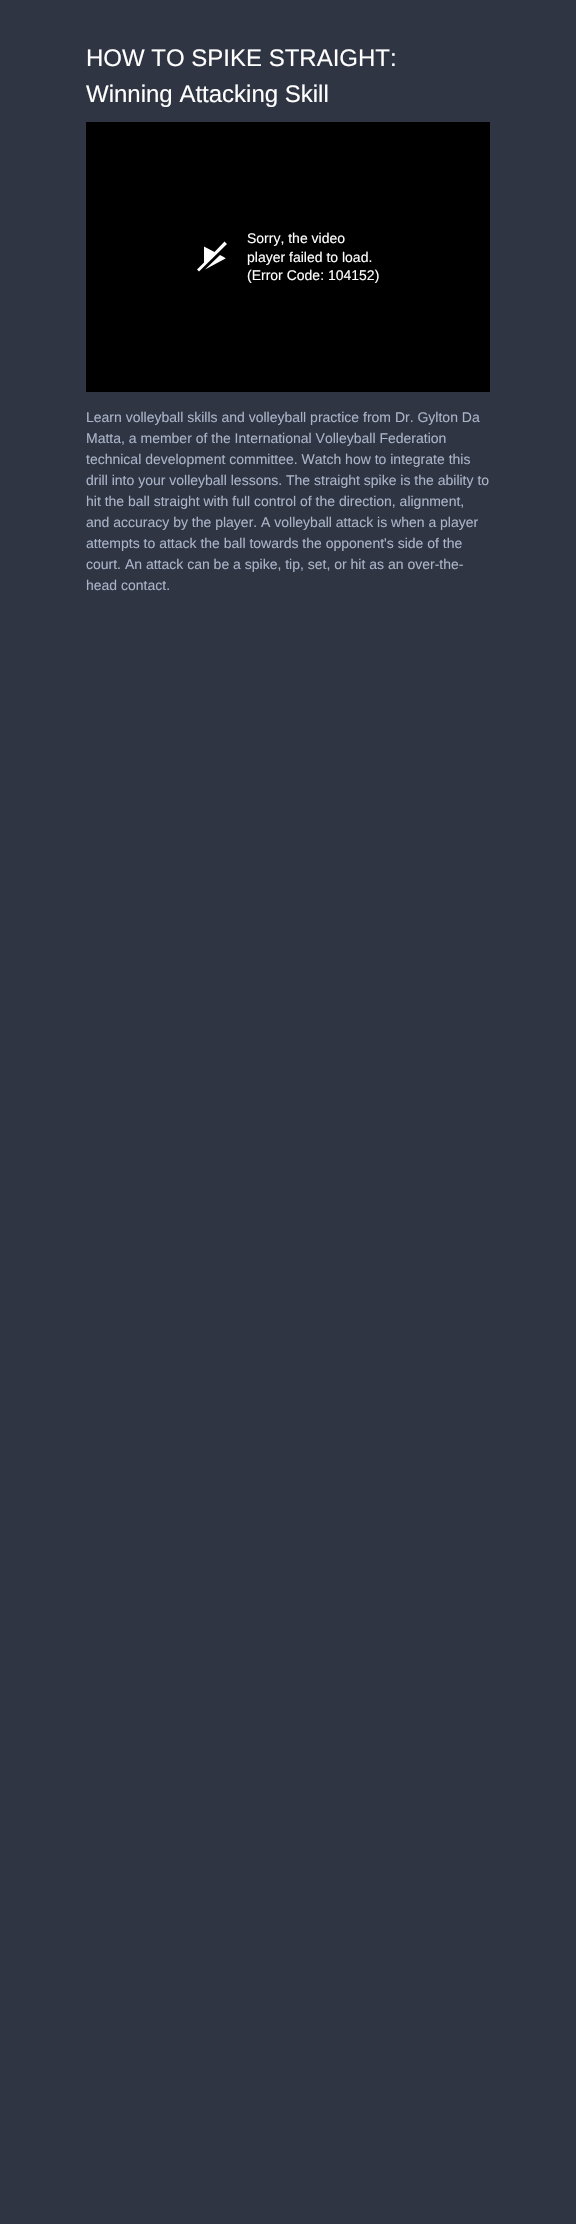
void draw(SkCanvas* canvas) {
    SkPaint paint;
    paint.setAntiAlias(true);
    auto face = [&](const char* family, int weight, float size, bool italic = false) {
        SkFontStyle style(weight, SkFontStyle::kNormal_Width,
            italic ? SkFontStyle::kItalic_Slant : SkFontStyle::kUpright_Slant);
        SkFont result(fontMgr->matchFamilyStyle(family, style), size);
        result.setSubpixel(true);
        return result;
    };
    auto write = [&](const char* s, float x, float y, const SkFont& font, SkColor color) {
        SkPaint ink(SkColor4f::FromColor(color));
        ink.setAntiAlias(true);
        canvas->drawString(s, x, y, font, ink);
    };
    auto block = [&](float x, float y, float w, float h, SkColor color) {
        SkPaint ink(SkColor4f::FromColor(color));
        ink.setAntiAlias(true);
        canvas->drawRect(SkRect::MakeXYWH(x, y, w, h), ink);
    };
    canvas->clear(SkColorSetRGB(47, 53, 66));
    auto kFont1 = face("Liberation Sans", 400, 24);
    write("HOW TO SPIKE STRAIGHT:", 86, 66, kFont1, SK_ColorWHITE);
    write("Winning Attacking Skill", 86, 102, kFont1, SK_ColorWHITE);
    block(86, 122, 404, 270, SK_ColorBLACK);
    paint.setColor(SK_ColorWHITE);
    canvas->drawPath(SkPathBuilder().moveTo(225.5f, 258.5f).lineTo(205, 269.5f).lineTo(220, 255).cubicTo(225.5f, 258, 226.5f, 258.5f, 225.5f, 258.5f).close().moveTo(224.5f, 241.5f).lineTo(214.5f, 252).lineTo(204, 246.5f).lineTo(204, 262.5f).lineTo(197, 269.5f).lineTo(199, 271.5f).lineTo(227, 244).close().detach(), paint);
    auto kFont2 = face("Liberation Sans", 400, 14);
    write("Sorry, the video", 247, 243, kFont2, SK_ColorWHITE);
    write("player failed to load.", 247, 262, kFont2, SK_ColorWHITE);
    write("(Error Code: 104152)", 247, 280, kFont2, SK_ColorWHITE);
    write("Learn volleyball skills and volleyball practice from Dr. Gylton Da", 86, 422, kFont2, SkColorSetRGB(170, 180, 200));
    write("Matta, a member of the International Volleyball Federation", 86, 443, kFont2, SkColorSetRGB(170, 180, 200));
    write("technical development committee. Watch how to integrate this", 86, 464, kFont2, SkColorSetRGB(170, 180, 200));
    write("drill into your volleyball lessons. The straight spike is the ability to", 86, 485, kFont2, SkColorSetRGB(170, 180, 200));
    write("hit the ball straight with full control of the direction, alignment,", 86, 506, kFont2, SkColorSetRGB(170, 180, 200));
    write("and accuracy by the player. A volleyball attack is when a player", 86, 527, kFont2, SkColorSetRGB(170, 180, 200));
    write("attempts to attack the ball towards the opponent's side of the", 86, 548, kFont2, SkColorSetRGB(170, 180, 200));
    write("court. An attack can be a spike, tip, set, or hit as an over-the-", 86, 569, kFont2, SkColorSetRGB(170, 180, 200));
    write("head contact.", 86, 590, kFont2, SkColorSetRGB(170, 180, 200));
}
